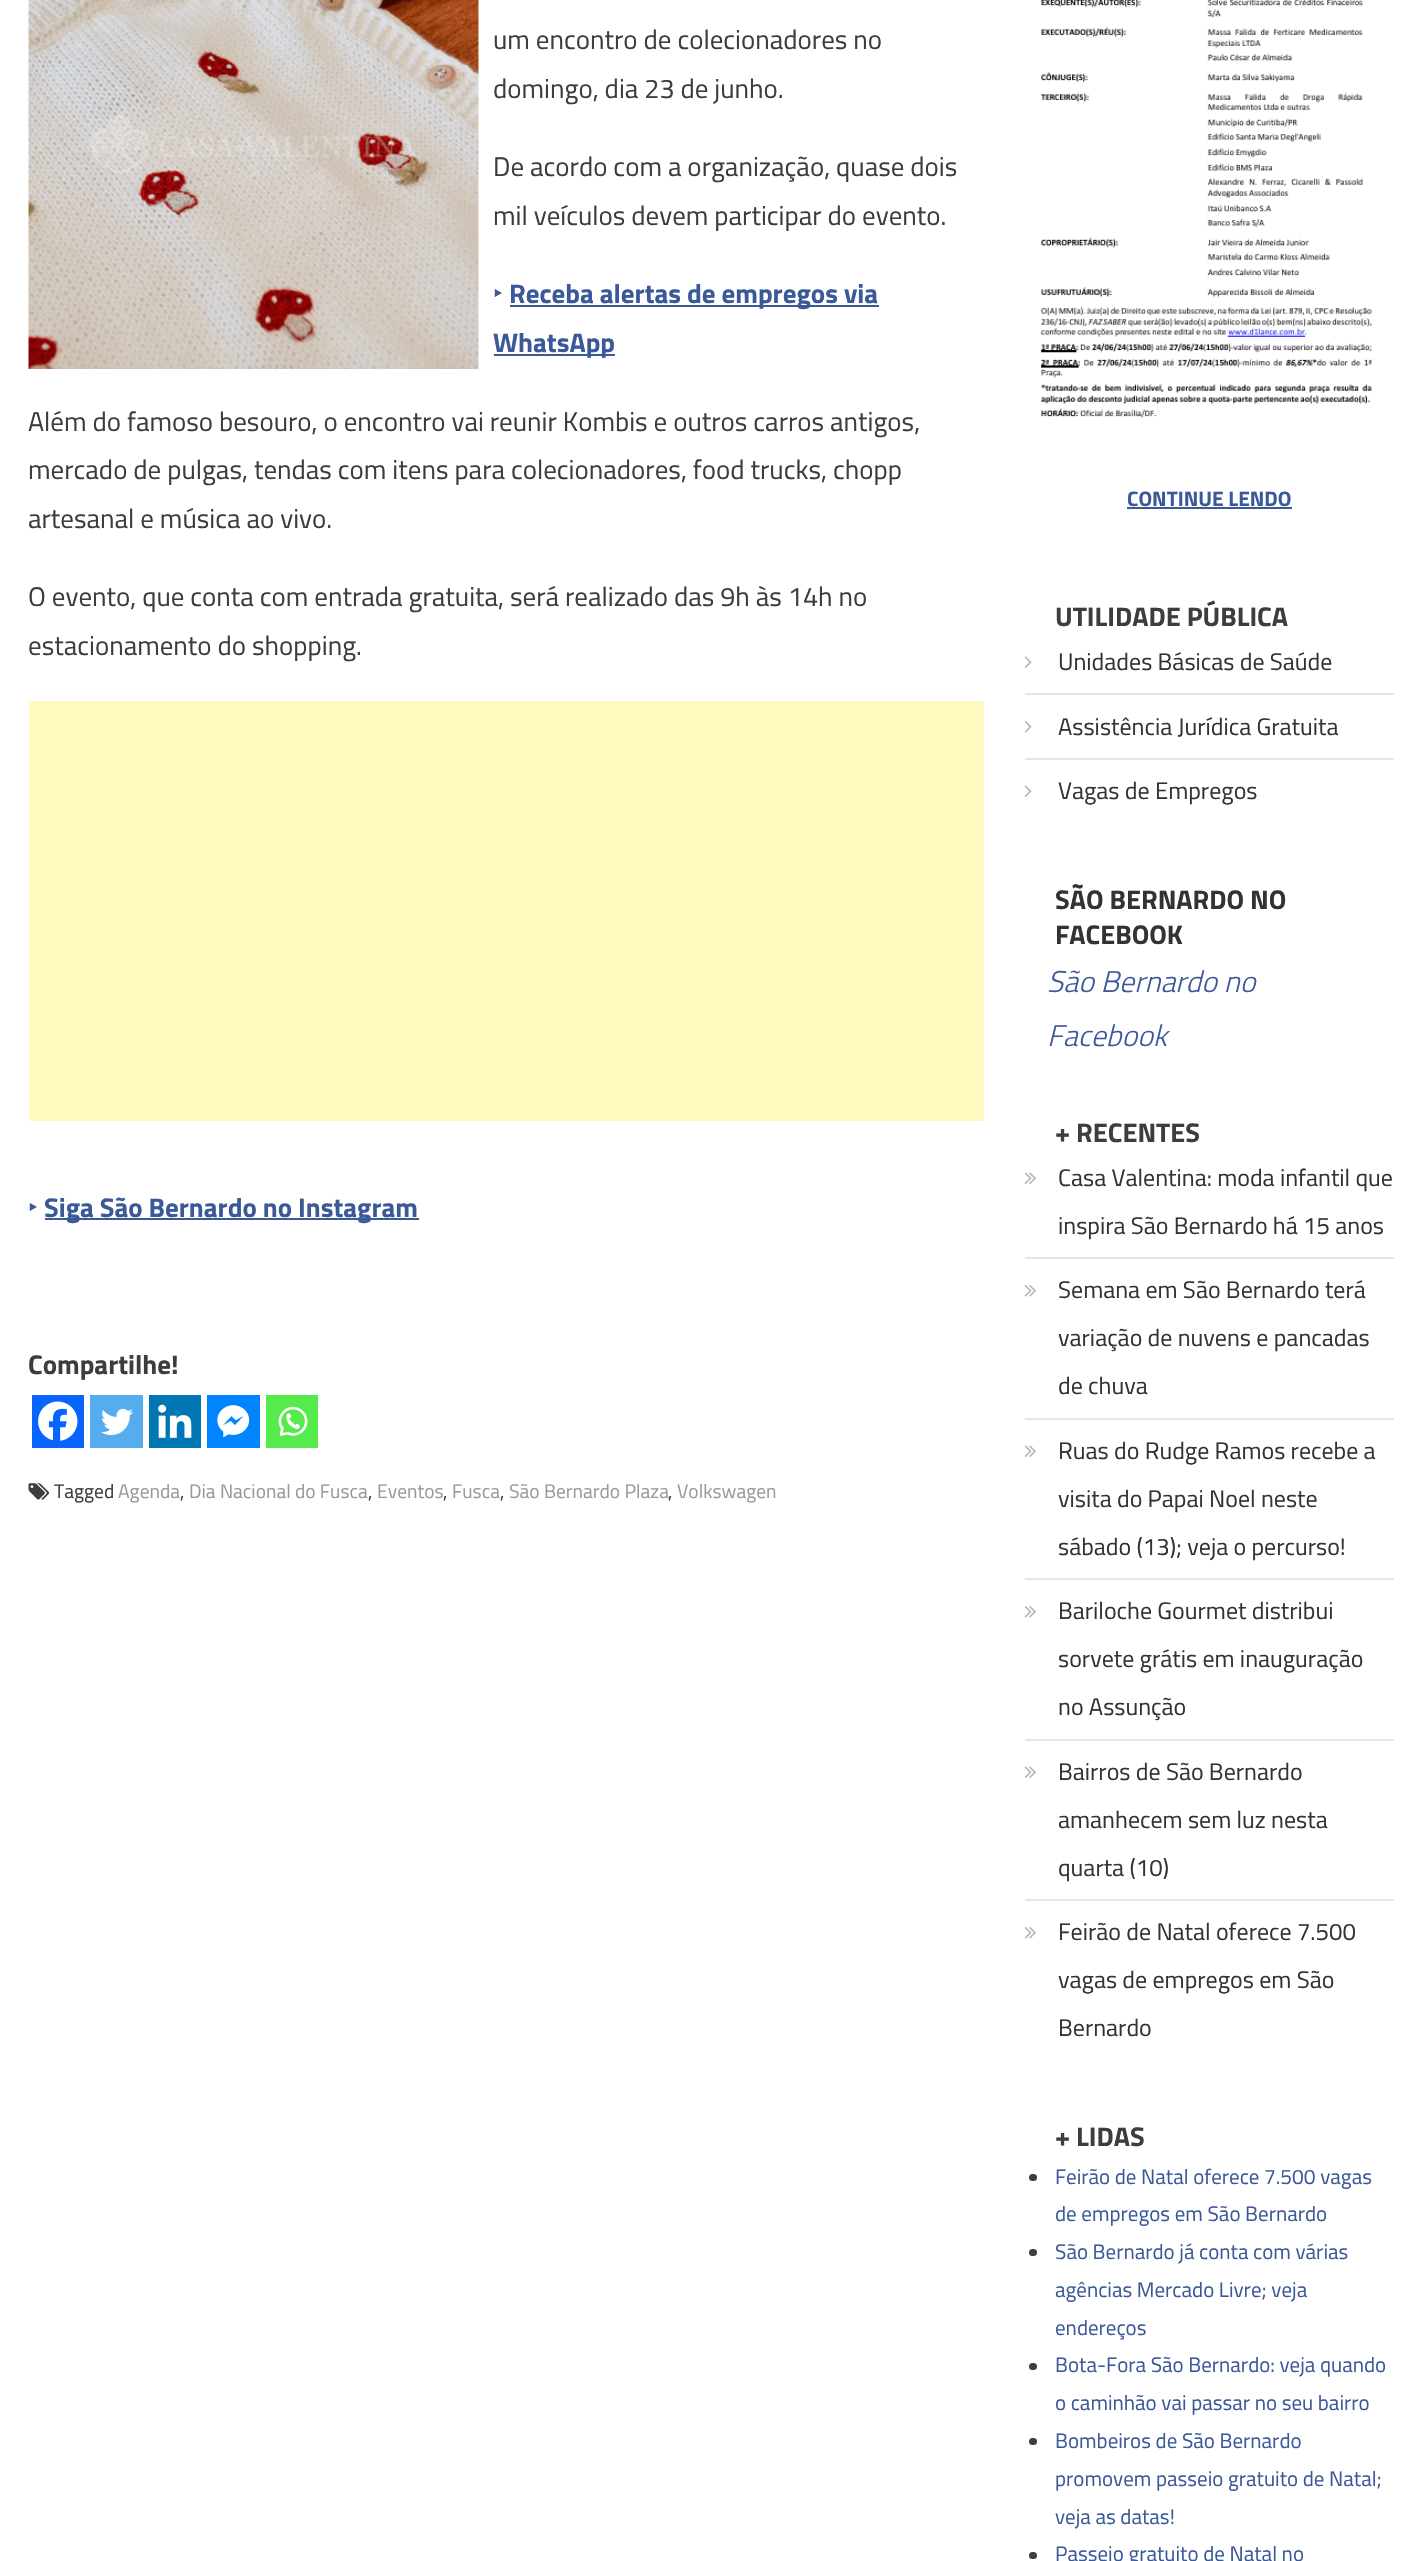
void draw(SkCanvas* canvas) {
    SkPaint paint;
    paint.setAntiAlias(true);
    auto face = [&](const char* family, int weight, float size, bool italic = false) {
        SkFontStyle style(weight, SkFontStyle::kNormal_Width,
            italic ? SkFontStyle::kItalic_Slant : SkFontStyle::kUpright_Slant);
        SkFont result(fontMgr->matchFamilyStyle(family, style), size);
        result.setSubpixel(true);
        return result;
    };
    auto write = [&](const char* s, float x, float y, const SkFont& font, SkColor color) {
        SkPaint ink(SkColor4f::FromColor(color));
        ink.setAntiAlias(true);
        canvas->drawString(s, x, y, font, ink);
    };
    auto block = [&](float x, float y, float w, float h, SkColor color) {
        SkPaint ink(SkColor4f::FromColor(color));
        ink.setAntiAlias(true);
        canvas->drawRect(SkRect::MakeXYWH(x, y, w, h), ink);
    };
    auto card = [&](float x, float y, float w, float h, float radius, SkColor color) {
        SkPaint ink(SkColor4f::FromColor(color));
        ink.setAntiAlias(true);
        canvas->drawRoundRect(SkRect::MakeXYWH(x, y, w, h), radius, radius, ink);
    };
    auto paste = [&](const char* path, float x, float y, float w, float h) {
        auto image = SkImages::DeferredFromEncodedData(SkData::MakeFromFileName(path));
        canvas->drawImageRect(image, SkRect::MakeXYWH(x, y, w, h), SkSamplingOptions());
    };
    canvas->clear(SK_ColorWHITE);
    paste("pic1.png", 28, 0, 451, 369);
    auto kFont1 = face("Titillium Web", 400, 27);
    write("um encontro de colecionadores no", 493, 49, kFont1, SkColorSetRGB(61, 61, 61));
    write("domingo, dia 23 de junho.", 493, 98, kFont1, SkColorSetRGB(61, 61, 61));
    write("De acordo com a organização, quase dois", 493, 176, kFont1, SkColorSetRGB(61, 61, 61));
    write("mil veículos devem participar do evento.", 493, 225, kFont1, SkColorSetRGB(61, 61, 61));
    auto kFont2 = face("Noto Sans", 400, 27);
    write("‣", 493, 303, kFont2, SkColorSetRGB(59, 89, 152));
    block(510, 305, 369, 2, SkColorSetRGB(59, 89, 152));
    auto kFont3 = face("Titillium Web", 700, 27);
    write("Receba alertas de empregos via", 509, 303, kFont3, SkColorSetRGB(59, 89, 152));
    block(494, 354, 121, 2, SkColorSetRGB(59, 89, 152));
    write("WhatsApp", 493, 352, kFont3, SkColorSetRGB(59, 89, 152));
    write("Além do famoso besouro, o encontro vai reunir Kombis e outros carros antigos,", 28, 431, kFont1, SkColorSetRGB(61, 61, 61));
    write("mercado de pulgas, tendas com itens para colecionadores, food trucks, chopp", 28, 479, kFont1, SkColorSetRGB(61, 61, 61));
    write("artesanal e música ao vivo.", 28, 528, kFont1, SkColorSetRGB(61, 61, 61));
    write("O evento, que conta com entrada gratuita, será realizado das 9h às 14h no", 28, 606, kFont1, SkColorSetRGB(61, 61, 61));
    write("estacionamento do shopping.", 28, 655, kFont1, SkColorSetRGB(61, 61, 61));
    block(29, 701, 955, 420, SkColorSetRGB(255, 249, 192));
    write("‣", 28, 1217, kFont2, SkColorSetRGB(59, 89, 152));
    block(45, 1218, 374, 2, SkColorSetRGB(59, 89, 152));
    write("Siga São Bernardo no Instagram", 44, 1217, kFont3, SkColorSetRGB(59, 89, 152));
    write("Compartilhe!", 28, 1374, kFont3, SkColorSetRGB(61, 61, 61));
    block(32, 1395, 52, 53, SkColorSetRGB(7, 101, 254));
    paste("pic2.png", 38, 1401, 40, 40);
    block(90, 1395, 53, 53, SkColorSetRGB(85, 172, 238));
    paste("pic3.png", 101, 1408, 32, 28);
    block(149, 1395, 52, 53, SkColorSetRGB(0, 119, 181));
    paste("pic4.png", 158, 1404, 34, 34);
    block(207, 1395, 53, 53, SkColorSetRGB(0, 132, 255));
    paste("pic5.png", 217, 1405, 33, 33);
    block(266, 1395, 52, 53, SkColorSetRGB(85, 235, 76));
    paste("pic6.png", 278, 1406, 30, 30);
    paste("pic7.png", 28, 1483, 22, 17);
    auto kFont4 = face("Titillium Web", 400, 19.5f);
    write("Tagged", 54, 1498, kFont4, SkColorSetRGB(61, 61, 61));
    write("Agenda", 118, 1498, kFont4, SkColorSetRGB(153, 153, 153));
    write(",", 180, 1498, kFont4, SkColorSetRGB(61, 61, 61));
    write("Dia Nacional do Fusca", 189, 1498, kFont4, SkColorSetRGB(153, 153, 153));
    write(",", 368, 1498, kFont4, SkColorSetRGB(61, 61, 61));
    write("Eventos", 377, 1498, kFont4, SkColorSetRGB(153, 153, 153));
    write(",", 443, 1498, kFont4, SkColorSetRGB(61, 61, 61));
    write("Fusca", 452, 1498, kFont4, SkColorSetRGB(153, 153, 153));
    write(",", 500, 1498, kFont4, SkColorSetRGB(61, 61, 61));
    write("São Bernardo Plaza", 509, 1498, kFont4, SkColorSetRGB(153, 153, 153));
    write(",", 668, 1498, kFont4, SkColorSetRGB(61, 61, 61));
    write("Volkswagen", 677, 1498, kFont4, SkColorSetRGB(153, 153, 153));
    paste("pic8.png", 1041, 0, 331, 418);
    auto kFont5 = face("Titillium Web", 700, 21);
    write("CONTINUE LENDO", 1127, 506, kFont5, SkColorSetRGB(59, 89, 152));
    block(1127, 507, 165, 2, SkColorSetRGB(59, 89, 152));
    write("UTILIDADE PÚBLICA", 1055, 626, kFont3, SkColorSetRGB(61, 61, 61));
    block(1025, 693, 369, 2, SkColorSetRGB(230, 230, 230));
    paste("pic9.png", 1024, 656, 8, 12);
    auto kFont6 = face("Titillium Web", 400, 24);
    write("Unidades Básicas de Saúde", 1058, 670, kFont6, SkColorSetRGB(51, 51, 51));
    block(1025, 758, 369, 2, SkColorSetRGB(230, 230, 230));
    paste("pic10.png", 1024, 721, 8, 12);
    write("Assistência Jurídica Gratuita", 1058, 735, kFont6, SkColorSetRGB(51, 51, 51));
    paste("pic9.png", 1024, 785, 8, 12);
    write("Vagas de Empregos", 1058, 799, kFont6, SkColorSetRGB(51, 51, 51));
    write("SÃO BERNARDO NO", 1055, 909, kFont3, SkColorSetRGB(51, 51, 51));
    write("FACEBOOK", 1055, 944, kFont3, SkColorSetRGB(51, 51, 51));
    auto kFont7 = face("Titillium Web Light", 300, 30, true);
    write("São Bernardo no", 1047, 992, kFont7, SkColorSetRGB(59, 89, 152));
    write("Facebook", 1047, 1046, kFont7, SkColorSetRGB(59, 89, 152));
    write("+ RECENTES", 1055, 1142, kFont3, SkColorSetRGB(61, 61, 61));
    block(1025, 1257, 369, 2, SkColorSetRGB(230, 230, 230));
    paste("pic11.png", 1024, 1172, 12, 12);
    write("Casa Valentina: moda infantil que", 1058, 1186, kFont6, SkColorSetRGB(51, 51, 51));
    write("inspira São Bernardo há 15 anos", 1058, 1234, kFont6, SkColorSetRGB(51, 51, 51));
    block(1025, 1418, 369, 2, SkColorSetRGB(230, 230, 230));
    paste("pic12.png", 1024, 1285, 12, 12);
    write("Semana em São Bernardo terá", 1058, 1298, kFont6, SkColorSetRGB(51, 51, 51));
    write("variação de nuvens e pancadas", 1058, 1346, kFont6, SkColorSetRGB(51, 51, 51));
    write("de chuva", 1058, 1394, kFont6, SkColorSetRGB(51, 51, 51));
    block(1025, 1578, 369, 2, SkColorSetRGB(230, 230, 230));
    paste("pic11.png", 1024, 1445, 12, 12);
    write("Ruas do Rudge Ramos recebe a", 1058, 1459, kFont6, SkColorSetRGB(51, 51, 51));
    write("visita do Papai Noel neste", 1058, 1507, kFont6, SkColorSetRGB(51, 51, 51));
    write("sábado (13); veja o percurso!", 1058, 1555, kFont6, SkColorSetRGB(51, 51, 51));
    block(1025, 1739, 369, 2, SkColorSetRGB(230, 230, 230));
    paste("pic12.png", 1024, 1606, 12, 12);
    write("Bariloche Gourmet distribui", 1058, 1619, kFont6, SkColorSetRGB(51, 51, 51));
    write("sorvete grátis em inauguração", 1058, 1667, kFont6, SkColorSetRGB(51, 51, 51));
    write("no Assunção", 1058, 1715, kFont6, SkColorSetRGB(51, 51, 51));
    block(1025, 1899, 369, 2, SkColorSetRGB(230, 230, 230));
    paste("pic11.png", 1024, 1766, 12, 12);
    write("Bairros de São Bernardo", 1058, 1780, kFont6, SkColorSetRGB(51, 51, 51));
    write("amanhecem sem luz nesta", 1058, 1828, kFont6, SkColorSetRGB(51, 51, 51));
    write("quarta (10)", 1058, 1876, kFont6, SkColorSetRGB(51, 51, 51));
    paste("pic12.png", 1024, 1927, 12, 12);
    write("Feirão de Natal oferece 7.500", 1058, 1940, kFont6, SkColorSetRGB(51, 51, 51));
    write("vagas de empregos em São", 1058, 1988, kFont6, SkColorSetRGB(51, 51, 51));
    write("Bernardo", 1058, 2036, kFont6, SkColorSetRGB(51, 51, 51));
    write("+ LIDAS", 1055, 2146, kFont3, SkColorSetRGB(61, 61, 61));
    card(1029, 2174, 8, 7, 3.5f, SkColorSetRGB(61, 61, 61));
    auto kFont8 = face("Titillium Web", 400, 21);
    write("Feirão de Natal oferece 7.500 vagas", 1055, 2184, kFont8, SkColorSetRGB(59, 89, 152));
    write("de empregos em São Bernardo", 1055, 2221, kFont8, SkColorSetRGB(59, 89, 152));
    card(1029, 2249, 8, 7, 3.5f, SkColorSetRGB(61, 61, 61));
    write("São Bernardo já conta com várias", 1055, 2259, kFont8, SkColorSetRGB(59, 89, 152));
    write("agências Mercado Livre; veja", 1055, 2297, kFont8, SkColorSetRGB(59, 89, 152));
    write("endereços", 1055, 2335, kFont8, SkColorSetRGB(59, 89, 152));
    card(1029, 2363, 8, 7, 3.5f, SkColorSetRGB(61, 61, 61));
    write("Bota-Fora São Bernardo: veja quando", 1055, 2372, kFont8, SkColorSetRGB(59, 89, 152));
    write("o caminhão vai passar no seu bairro", 1055, 2410, kFont8, SkColorSetRGB(59, 89, 152));
    card(1029, 2438, 8, 7, 3.5f, SkColorSetRGB(61, 61, 61));
    write("Bombeiros de São Bernardo", 1055, 2448, kFont8, SkColorSetRGB(59, 89, 152));
    write("promovem passeio gratuito de Natal;", 1055, 2486, kFont8, SkColorSetRGB(59, 89, 152));
    write("veja as datas!", 1055, 2524, kFont8, SkColorSetRGB(59, 89, 152));
    card(1029, 2552, 8, 7, 3.5f, SkColorSetRGB(61, 61, 61));
    write("Passeio gratuito de Natal no", 1055, 2561, kFont8, SkColorSetRGB(59, 89, 152));
}
